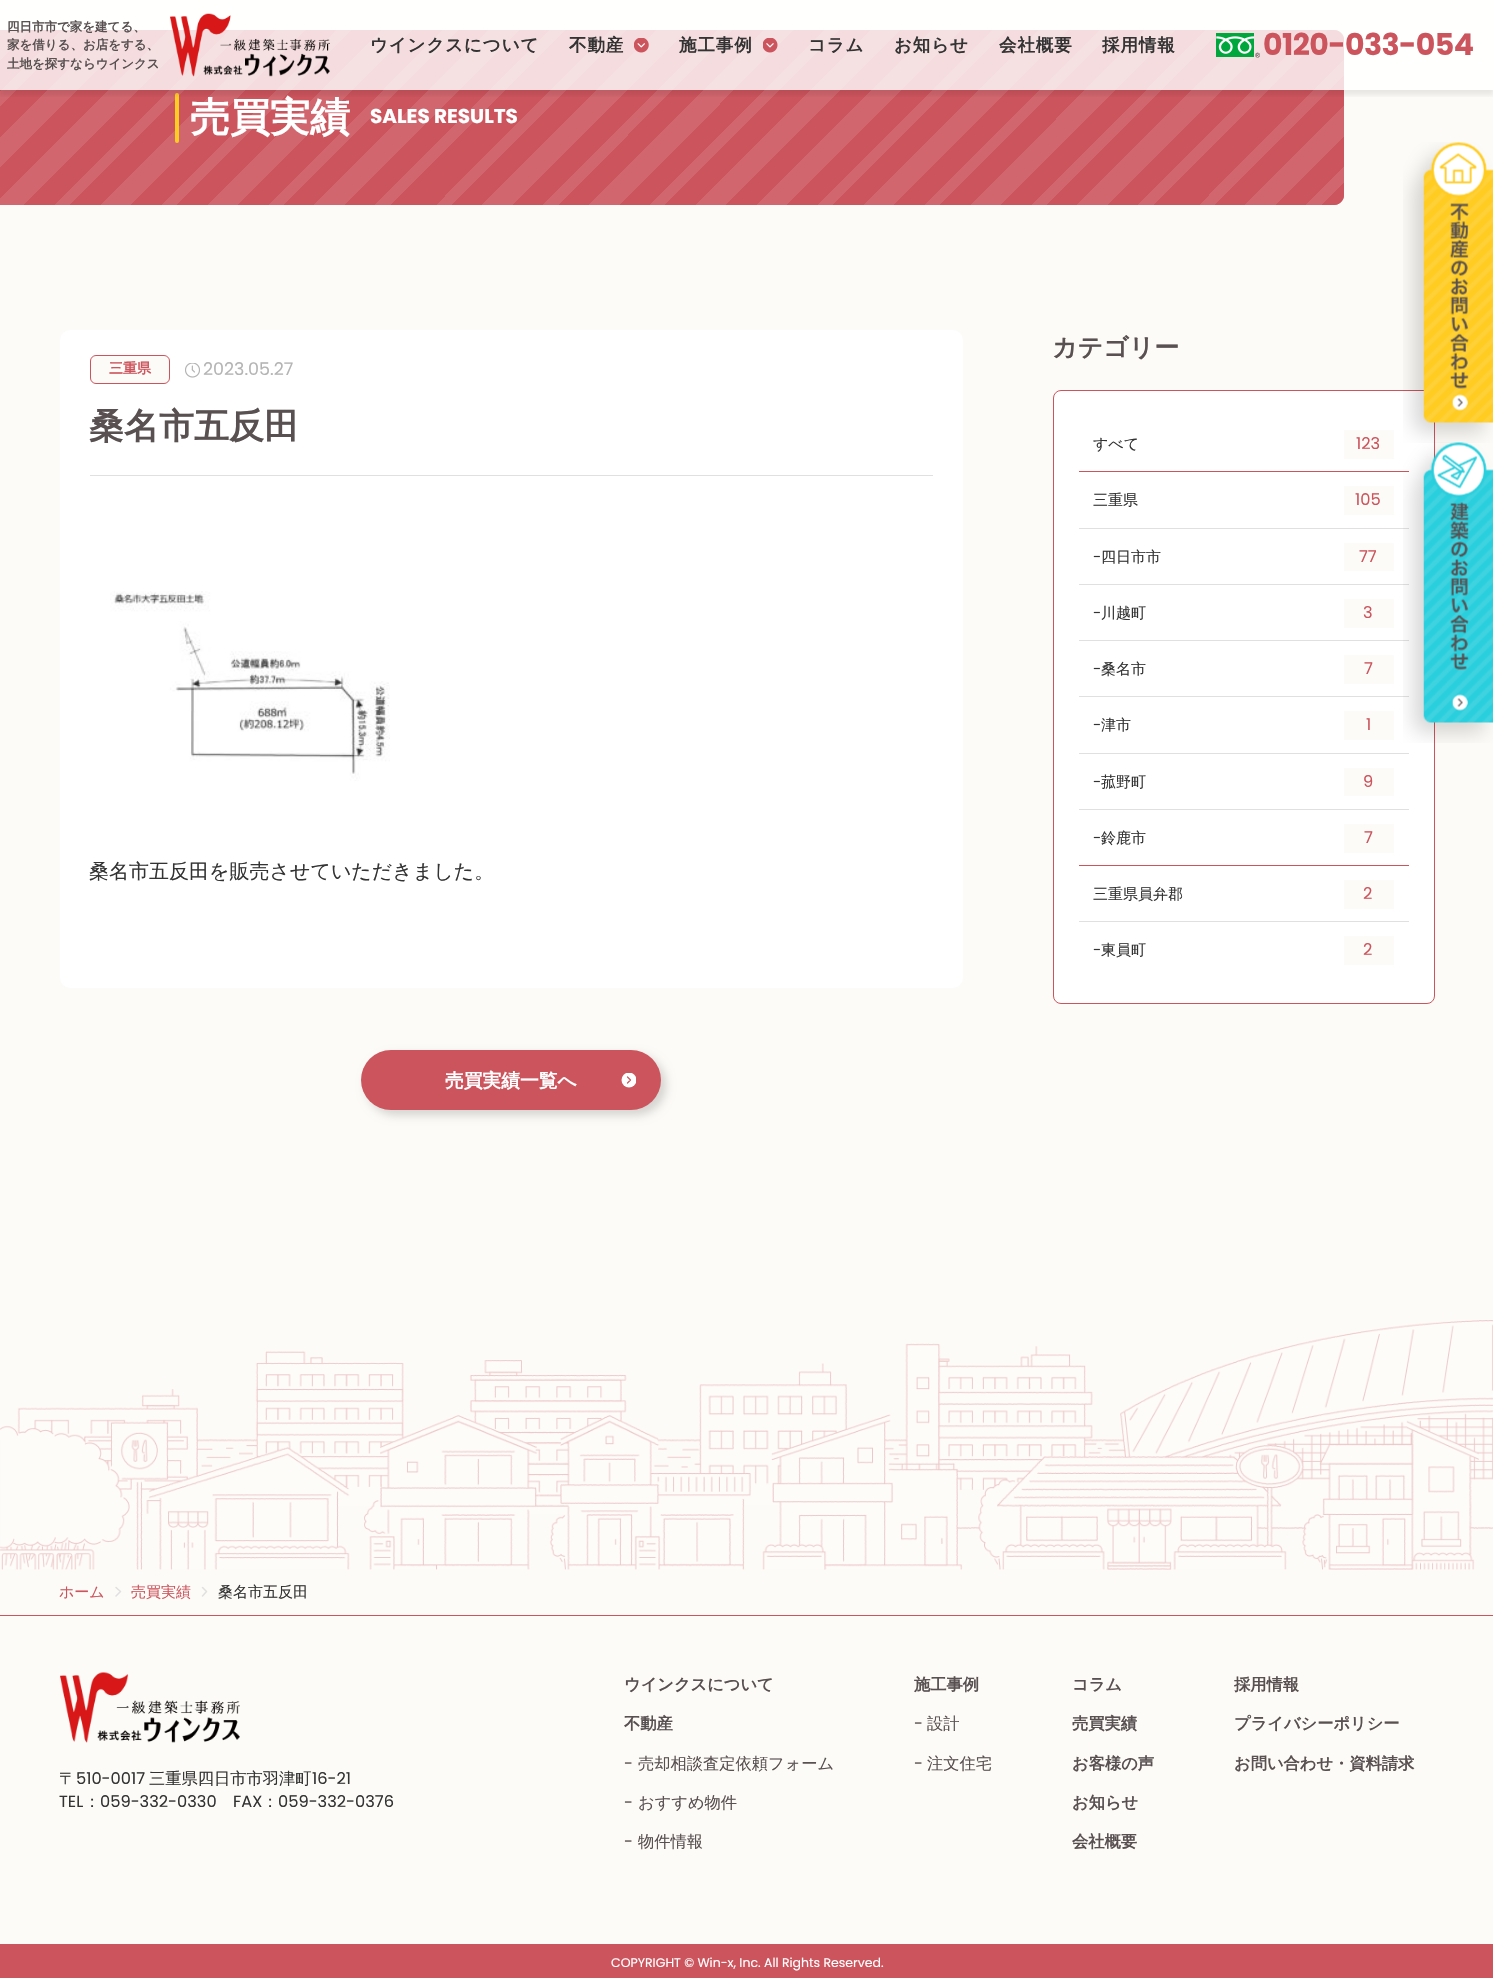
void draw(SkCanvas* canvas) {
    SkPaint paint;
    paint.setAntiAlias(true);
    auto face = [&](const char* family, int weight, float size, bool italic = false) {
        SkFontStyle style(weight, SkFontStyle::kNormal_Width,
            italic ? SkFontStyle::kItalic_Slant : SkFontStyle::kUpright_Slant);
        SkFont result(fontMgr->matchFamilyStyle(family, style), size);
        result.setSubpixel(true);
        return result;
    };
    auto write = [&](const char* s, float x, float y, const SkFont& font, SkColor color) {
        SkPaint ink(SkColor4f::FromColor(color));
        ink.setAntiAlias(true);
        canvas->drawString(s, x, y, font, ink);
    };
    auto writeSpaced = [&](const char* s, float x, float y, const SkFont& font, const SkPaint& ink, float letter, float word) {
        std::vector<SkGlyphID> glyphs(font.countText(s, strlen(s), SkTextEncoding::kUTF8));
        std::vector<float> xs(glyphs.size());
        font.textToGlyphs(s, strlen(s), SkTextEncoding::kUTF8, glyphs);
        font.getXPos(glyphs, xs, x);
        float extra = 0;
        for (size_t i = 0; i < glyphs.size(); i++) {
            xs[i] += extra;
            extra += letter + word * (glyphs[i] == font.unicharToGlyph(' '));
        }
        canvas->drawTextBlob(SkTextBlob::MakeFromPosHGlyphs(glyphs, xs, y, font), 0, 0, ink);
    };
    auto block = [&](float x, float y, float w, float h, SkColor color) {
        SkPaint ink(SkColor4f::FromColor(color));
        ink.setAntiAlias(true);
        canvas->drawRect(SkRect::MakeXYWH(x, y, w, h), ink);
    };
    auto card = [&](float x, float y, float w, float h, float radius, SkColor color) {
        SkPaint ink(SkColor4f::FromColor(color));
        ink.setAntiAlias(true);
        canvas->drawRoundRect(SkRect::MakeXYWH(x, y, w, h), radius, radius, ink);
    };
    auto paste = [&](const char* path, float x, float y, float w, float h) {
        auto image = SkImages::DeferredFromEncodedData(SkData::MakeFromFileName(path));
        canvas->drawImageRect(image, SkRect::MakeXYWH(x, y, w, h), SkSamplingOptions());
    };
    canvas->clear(SkColorSetRGB(253, 251, 247));
    paint.setColor(SkColorSetRGB(209, 102, 110));
    canvas->drawPath(SkPathBuilder().moveTo(0, 30).lineTo(1334, 30).cubicTo(1339.5f, 30, 1344, 34.5f, 1344, 40).lineTo(1344, 195).cubicTo(1344, 200.5f, 1339.5f, 205, 1334, 205).lineTo(0, 205).close().detach(), paint);
    {
        const SkColor colors[] = {SkColorSetARGB(0, 0, 0, 0), SkColorSetARGB(0, 204, 84, 93), SkColorSetRGB(204, 84, 93), SkColorSetRGB(204, 84, 93), SkColorSetARGB(0, 204, 84, 93), SkColorSetARGB(0, 204, 84, 93), SkColorSetRGB(204, 84, 93), SkColorSetRGB(204, 84, 93), SkColorSetARGB(0, 204, 84, 93), SkColorSetARGB(0, 204, 84, 93), SkColorSetRGB(204, 84, 93), SkColorSetRGB(204, 84, 93), SkColorSetARGB(0, 204, 84, 93), SkColorSetARGB(0, 204, 84, 93), SkColorSetRGB(204, 84, 93), SkColorSetRGB(204, 84, 93), SkColorSetARGB(0, 204, 84, 93), SkColorSetARGB(0, 204, 84, 93), SkColorSetRGB(204, 84, 93), SkColorSetRGB(204, 84, 93), SkColorSetARGB(0, 204, 84, 93), SkColorSetARGB(0, 204, 84, 93), SkColorSetRGB(204, 84, 93), SkColorSetRGB(204, 84, 93), SkColorSetARGB(0, 204, 84, 93), SkColorSetARGB(0, 204, 84, 93), SkColorSetRGB(204, 84, 93), SkColorSetRGB(204, 84, 93), SkColorSetARGB(0, 204, 84, 93), SkColorSetARGB(0, 204, 84, 93), SkColorSetRGB(204, 84, 93), SkColorSetRGB(204, 84, 93), SkColorSetARGB(0, 204, 84, 93), SkColorSetARGB(0, 204, 84, 93), SkColorSetRGB(204, 84, 93), SkColorSetRGB(204, 84, 93), SkColorSetARGB(0, 204, 84, 93), SkColorSetARGB(0, 204, 84, 93), SkColorSetRGB(204, 84, 93), SkColorSetRGB(204, 84, 93), SkColorSetARGB(0, 204, 84, 93), SkColorSetARGB(0, 204, 84, 93), SkColorSetRGB(204, 84, 93), SkColorSetRGB(204, 84, 93), SkColorSetARGB(0, 204, 84, 93), SkColorSetARGB(0, 204, 84, 93), SkColorSetRGB(204, 84, 93), SkColorSetRGB(204, 84, 93), SkColorSetARGB(0, 204, 84, 93), SkColorSetARGB(0, 204, 84, 93), SkColorSetRGB(204, 84, 93), SkColorSetRGB(204, 84, 93), SkColorSetARGB(0, 204, 84, 93), SkColorSetARGB(0, 204, 84, 93), SkColorSetRGB(204, 84, 93), SkColorSetRGB(204, 84, 93), SkColorSetARGB(0, 204, 84, 93), SkColorSetARGB(0, 204, 84, 93), SkColorSetRGB(204, 84, 93), SkColorSetRGB(204, 84, 93), SkColorSetARGB(0, 204, 84, 93), SkColorSetARGB(0, 204, 84, 93), SkColorSetRGB(204, 84, 93), SkColorSetRGB(204, 84, 93), SkColorSetARGB(0, 204, 84, 93), SkColorSetARGB(0, 204, 84, 93), SkColorSetRGB(204, 84, 93), SkColorSetRGB(204, 84, 93), SkColorSetARGB(0, 204, 84, 93), SkColorSetARGB(0, 204, 84, 93), SkColorSetRGB(204, 84, 93), SkColorSetRGB(204, 84, 93), SkColorSetARGB(0, 204, 84, 93), SkColorSetARGB(0, 204, 84, 93), SkColorSetRGB(204, 84, 93), SkColorSetRGB(204, 84, 93), SkColorSetARGB(0, 204, 84, 93), SkColorSetARGB(0, 204, 84, 93), SkColorSetRGB(204, 84, 93), SkColorSetRGB(204, 84, 93), SkColorSetARGB(0, 204, 84, 93), SkColorSetARGB(0, 204, 84, 93), SkColorSetRGB(204, 84, 93), SkColorSetRGB(204, 84, 93), SkColorSetARGB(0, 204, 84, 93), SkColorSetARGB(0, 204, 84, 93), SkColorSetRGB(204, 84, 93), SkColorSetRGB(204, 84, 93), SkColorSetARGB(0, 204, 84, 93), SkColorSetARGB(0, 204, 84, 93), SkColorSetRGB(204, 84, 93), SkColorSetRGB(204, 84, 93), SkColorSetARGB(0, 204, 84, 93), SkColorSetARGB(0, 204, 84, 93), SkColorSetRGB(204, 84, 93), SkColorSetRGB(204, 84, 93), SkColorSetARGB(0, 204, 84, 93), SkColorSetARGB(0, 204, 84, 93), SkColorSetRGB(204, 84, 93), SkColorSetRGB(204, 84, 93), SkColorSetARGB(0, 204, 84, 93), SkColorSetARGB(0, 204, 84, 93), SkColorSetRGB(204, 84, 93), SkColorSetRGB(204, 84, 93), SkColorSetARGB(0, 204, 84, 93), SkColorSetARGB(0, 204, 84, 93), SkColorSetRGB(204, 84, 93), SkColorSetRGB(204, 84, 93), SkColorSetARGB(0, 204, 84, 93), SkColorSetARGB(0, 204, 84, 93), SkColorSetRGB(204, 84, 93), SkColorSetRGB(204, 84, 93), SkColorSetARGB(0, 204, 84, 93), SkColorSetARGB(0, 204, 84, 93), SkColorSetRGB(204, 84, 93), SkColorSetRGB(204, 84, 93), SkColorSetARGB(0, 204, 84, 93), SkColorSetARGB(0, 204, 84, 93), SkColorSetRGB(204, 84, 93), SkColorSetRGB(204, 84, 93), SkColorSetARGB(0, 204, 84, 93), SkColorSetARGB(0, 204, 84, 93), SkColorSetRGB(204, 84, 93), SkColorSetRGB(204, 84, 93), SkColorSetARGB(0, 204, 84, 93), SkColorSetARGB(0, 204, 84, 93), SkColorSetRGB(204, 84, 93), SkColorSetRGB(204, 84, 93), SkColorSetARGB(0, 204, 84, 93), SkColorSetARGB(0, 204, 84, 93), SkColorSetRGB(204, 84, 93), SkColorSetRGB(204, 84, 93), SkColorSetARGB(0, 204, 84, 93), SkColorSetARGB(0, 204, 84, 93), SkColorSetRGB(204, 84, 93), SkColorSetRGB(204, 84, 93), SkColorSetARGB(0, 204, 84, 93), SkColorSetARGB(0, 204, 84, 93), SkColorSetRGB(204, 84, 93), SkColorSetRGB(204, 84, 93), SkColorSetARGB(0, 204, 84, 93), SkColorSetARGB(0, 204, 84, 93), SkColorSetRGB(204, 84, 93), SkColorSetRGB(204, 84, 93), SkColorSetARGB(0, 204, 84, 93), SkColorSetARGB(0, 204, 84, 93), SkColorSetRGB(204, 84, 93), SkColorSetRGB(204, 84, 93), SkColorSetARGB(0, 204, 84, 93), SkColorSetARGB(0, 204, 84, 93), SkColorSetRGB(204, 84, 93), SkColorSetRGB(204, 84, 93), SkColorSetARGB(0, 204, 84, 93), SkColorSetARGB(0, 204, 84, 93), SkColorSetRGB(204, 84, 93), SkColorSetRGB(204, 84, 93), SkColorSetARGB(0, 204, 84, 93), SkColorSetARGB(0, 204, 84, 93), SkColorSetRGB(204, 84, 93), SkColorSetRGB(204, 84, 93), SkColorSetARGB(0, 204, 84, 93), SkColorSetARGB(0, 204, 84, 93), SkColorSetRGB(204, 84, 93), SkColorSetRGB(204, 84, 93), SkColorSetARGB(0, 204, 84, 93), SkColorSetARGB(0, 204, 84, 93), SkColorSetRGB(204, 84, 93), SkColorSetRGB(204, 84, 93), SkColorSetARGB(0, 204, 84, 93), SkColorSetARGB(0, 204, 84, 93), SkColorSetRGB(204, 84, 93), SkColorSetRGB(204, 84, 93), SkColorSetARGB(0, 204, 84, 93), SkColorSetARGB(0, 204, 84, 93), SkColorSetRGB(204, 84, 93), SkColorSetRGB(204, 84, 93), SkColorSetARGB(0, 204, 84, 93), SkColorSetARGB(0, 204, 84, 93), SkColorSetRGB(204, 84, 93), SkColorSetRGB(204, 84, 93), SkColorSetARGB(0, 204, 84, 93), SkColorSetARGB(0, 204, 84, 93), SkColorSetRGB(204, 84, 93), SkColorSetRGB(204, 84, 93), SkColorSetARGB(0, 204, 84, 93), SkColorSetARGB(0, 204, 84, 93), SkColorSetRGB(204, 84, 93), SkColorSetRGB(204, 84, 93), SkColorSetARGB(0, 204, 84, 93), SkColorSetARGB(0, 204, 84, 93), SkColorSetRGB(204, 84, 93), SkColorSetRGB(204, 84, 93), SkColorSetARGB(0, 204, 84, 93), SkColorSetARGB(0, 204, 84, 93), SkColorSetRGB(204, 84, 93), SkColorSetRGB(204, 84, 93), SkColorSetARGB(0, 204, 84, 93), SkColorSetARGB(0, 204, 84, 93), SkColorSetRGB(204, 84, 93), SkColorSetRGB(204, 84, 93), SkColorSetARGB(0, 204, 84, 93), SkColorSetARGB(0, 204, 84, 93), SkColorSetRGB(204, 84, 93), SkColorSetRGB(204, 84, 93), SkColorSetARGB(0, 204, 84, 93), SkColorSetARGB(0, 204, 84, 93), SkColorSetRGB(204, 84, 93), SkColorSetRGB(204, 84, 93), SkColorSetARGB(0, 204, 84, 93), SkColorSetARGB(0, 204, 84, 93), SkColorSetRGB(204, 84, 93), SkColorSetRGB(204, 84, 93), SkColorSetARGB(0, 204, 84, 93), SkColorSetARGB(0, 204, 84, 93), SkColorSetRGB(204, 84, 93), SkColorSetRGB(204, 84, 93), SkColorSetARGB(0, 204, 84, 93), SkColorSetARGB(0, 204, 84, 93), SkColorSetRGB(204, 84, 93), SkColorSetRGB(204, 84, 93), SkColorSetARGB(0, 204, 84, 93), SkColorSetARGB(0, 204, 84, 93), SkColorSetRGB(204, 84, 93), SkColorSetRGB(204, 84, 93), SkColorSetARGB(0, 204, 84, 93), SkColorSetARGB(0, 204, 84, 93), SkColorSetRGB(204, 84, 93), SkColorSetRGB(204, 84, 93), SkColorSetARGB(0, 204, 84, 93), SkColorSetARGB(0, 204, 84, 93), SkColorSetRGB(204, 84, 93), SkColorSetRGB(204, 84, 93), SkColorSetARGB(0, 204, 84, 93), SkColorSetARGB(0, 204, 84, 93), SkColorSetRGB(204, 84, 93), SkColorSetRGB(204, 84, 93), SkColorSetARGB(0, 204, 84, 93), SkColorSetARGB(0, 204, 84, 93), SkColorSetRGB(204, 84, 93), SkColorSetRGB(204, 84, 93), SkColorSetARGB(0, 204, 84, 93), SkColorSetARGB(0, 204, 84, 93), SkColorSetRGB(204, 84, 93), SkColorSetRGB(204, 84, 93), SkColorSetARGB(0, 204, 84, 93), SkColorSetARGB(0, 204, 84, 93), SkColorSetRGB(204, 84, 93), SkColorSetRGB(204, 84, 93), SkColorSetARGB(0, 204, 84, 93), SkColorSetARGB(0, 204, 84, 93), SkColorSetRGB(204, 84, 93), SkColorSetRGB(204, 84, 93), SkColorSetARGB(0, 204, 84, 93), SkColorSetARGB(0, 204, 84, 93), SkColorSetRGB(204, 84, 93), SkColorSetRGB(204, 84, 93), SkColorSetARGB(0, 204, 84, 93), SkColorSetARGB(0, 204, 84, 93), SkColorSetRGB(204, 84, 93), SkColorSetRGB(204, 84, 93), SkColorSetARGB(0, 204, 84, 93), SkColorSetARGB(0, 204, 84, 93), SkColorSetRGB(204, 84, 93), SkColorSetRGB(204, 84, 93), SkColorSetARGB(0, 204, 84, 93), SkColorSetARGB(0, 204, 84, 93), SkColorSetRGB(204, 84, 93), SkColorSetRGB(204, 84, 93), SkColorSetARGB(0, 204, 84, 93), SkColorSetARGB(0, 204, 84, 93), SkColorSetRGB(204, 84, 93), SkColorSetRGB(204, 84, 93), SkColorSetARGB(0, 204, 84, 93), SkColorSetARGB(0, 204, 84, 93), SkColorSetRGB(204, 84, 93), SkColorSetRGB(204, 84, 93), SkColorSetARGB(0, 204, 84, 93), SkColorSetARGB(0, 204, 84, 93), SkColorSetRGB(204, 84, 93), SkColorSetRGB(204, 84, 93), SkColorSetARGB(0, 204, 84, 93), SkColorSetARGB(0, 204, 84, 93), SkColorSetRGB(204, 84, 93), SkColorSetRGB(204, 84, 93), SkColorSetARGB(0, 204, 84, 93), SkColorSetARGB(0, 204, 84, 93), SkColorSetRGB(204, 84, 93), SkColorSetRGB(204, 84, 93)};
        const float stops[] = {0, 0.01f, 0.01f, 0.01f, 0.01f, 0.02f, 0.02f, 0.03f, 0.03f, 0.03f, 0.03f, 0.04f, 0.04f, 0.05f, 0.05f, 0.06f, 0.06f, 0.06f, 0.06f, 0.07f, 0.07f, 0.08f, 0.08f, 0.08f, 0.08f, 0.09f, 0.09f, 0.1f, 0.1f, 0.1f, 0.1f, 0.11f, 0.11f, 0.12f, 0.12f, 0.12f, 0.12f, 0.13f, 0.13f, 0.14f, 0.14f, 0.14f, 0.14f, 0.15f, 0.15f, 0.16f, 0.16f, 0.17f, 0.17f, 0.17f, 0.17f, 0.18f, 0.18f, 0.19f, 0.19f, 0.19f, 0.19f, 0.2f, 0.2f, 0.21f, 0.21f, 0.21f, 0.21f, 0.22f, 0.22f, 0.23f, 0.23f, 0.24f, 0.24f, 0.24f, 0.24f, 0.25f, 0.25f, 0.26f, 0.26f, 0.26f, 0.26f, 0.27f, 0.27f, 0.28f, 0.28f, 0.28f, 0.28f, 0.29f, 0.29f, 0.3f, 0.3f, 0.31f, 0.31f, 0.31f, 0.31f, 0.32f, 0.32f, 0.33f, 0.33f, 0.33f, 0.33f, 0.34f, 0.34f, 0.35f, 0.35f, 0.35f, 0.35f, 0.36f, 0.36f, 0.37f, 0.37f, 0.38f, 0.38f, 0.38f, 0.38f, 0.39f, 0.39f, 0.39f, 0.39f, 0.4f, 0.4f, 0.41f, 0.41f, 0.42f, 0.42f, 0.42f, 0.42f, 0.43f, 0.43f, 0.44f, 0.44f, 0.44f, 0.44f, 0.45f, 0.45f, 0.46f, 0.46f, 0.46f, 0.46f, 0.47f, 0.47f, 0.48f, 0.48f, 0.49f, 0.49f, 0.49f, 0.49f, 0.5f, 0.5f, 0.51f, 0.51f, 0.51f, 0.51f, 0.52f, 0.52f, 0.53f, 0.53f, 0.53f, 0.53f, 0.54f, 0.54f, 0.55f, 0.55f, 0.56f, 0.56f, 0.56f, 0.56f, 0.57f, 0.57f, 0.58f, 0.58f, 0.58f, 0.58f, 0.59f, 0.59f, 0.6f, 0.6f, 0.6f, 0.6f, 0.61f, 0.61f, 0.62f, 0.62f, 0.62f, 0.62f, 0.63f, 0.63f, 0.64f, 0.64f, 0.64f, 0.64f, 0.65f, 0.65f, 0.66f, 0.66f, 0.67f, 0.67f, 0.67f, 0.67f, 0.68f, 0.68f, 0.69f, 0.69f, 0.69f, 0.69f, 0.7f, 0.7f, 0.71f, 0.71f, 0.71f, 0.71f, 0.72f, 0.72f, 0.73f, 0.73f, 0.74f, 0.74f, 0.74f, 0.74f, 0.75f, 0.75f, 0.76f, 0.76f, 0.76f, 0.76f, 0.77f, 0.77f, 0.78f, 0.78f, 0.78f, 0.78f, 0.79f, 0.79f, 0.8f, 0.8f, 0.81f, 0.81f, 0.81f, 0.81f, 0.82f, 0.82f, 0.83f, 0.83f, 0.83f, 0.83f, 0.84f, 0.84f, 0.85f, 0.85f, 0.85f, 0.85f, 0.86f, 0.86f, 0.87f, 0.87f, 0.88f, 0.87f, 0.88f, 0.88f, 0.89f, 0.89f, 0.89f, 0.89f, 0.9f, 0.9f, 0.91f, 0.91f, 0.92f, 0.92f, 0.92f, 0.92f, 0.93f, 0.93f, 0.94f, 0.94f, 0.94f, 0.94f, 0.95f, 0.95f, 0.96f, 0.96f, 0.96f, 0.96f, 0.97f, 0.97f, 0.98f, 0.98f, 0.99f, 0.99f, 0.99f, 0.99f, 1};
        const SkPoint ends[] = {{292, -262}, {1056, 501}};
        paint.setShader(SkGradientShader::MakeLinear(ends, colors, stops, 288, SkTileMode::kClamp));
        paint.setAlpha(255);
    }
    canvas->drawPath(SkPathBuilder().moveTo(0, 30).lineTo(1334, 30).cubicTo(1339.5f, 30, 1344, 34.5f, 1344, 40).lineTo(1344, 195).cubicTo(1344, 200.5f, 1339.5f, 205, 1334, 205).lineTo(0, 205).close().detach(), paint);
    card(175, 93, 4, 50, 2, SkColorSetRGB(255, 204, 33));
    canvas->save();
    canvas->clipRect(SkRect::MakeXYWH(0, 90, 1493, 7));
    paint.setShader(nullptr);
    paint.setColor(SkColorSetARGB(20, 0, 0, 0));
    paint.setMaskFilter(SkMaskFilter::MakeBlur(kNormal_SkBlurStyle, 2.5f));
    canvas->drawRect(SkRect::MakeXYWH(0, 5, 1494, 90), paint);
    paint.setMaskFilter(nullptr);
    canvas->restore();
    block(0, 0, 1493, 90, SkColorSetARGB(204, 255, 255, 255));
    auto kFont1 = face("WenQuanYi Zen Hei", 700, 12.5f);
    write("四日市市で家を建てる、", 7, 31, kFont1, SkColorSetRGB(88, 80, 81));
    write("家を借りる、お店をする、", 7, 49, kFont1, SkColorSetRGB(88, 80, 81));
    write("土地を探すならウインクス", 7, 68, kFont1, SkColorSetRGB(88, 80, 81));
    paste("pic1.png", 170, 13, 160, 64);
    auto kFont2 = face("WenQuanYi Zen Hei", 700, 17.5f);
    paint.setColor(SkColorSetRGB(51, 51, 51));
    writeSpaced("ウインクスについて", 370, 51, kFont2, paint, 0.9f, 0);
    paste("pic2.png", 634, 38, 15, 15);
    writeSpaced("不動産", 569, 51, kFont2, paint, 0.9f, 0);
    paste("pic3.png", 763, 38, 15, 15);
    writeSpaced("施工事例", 679, 51, kFont2, paint, 0.9f, 0);
    writeSpaced("コラム", 808, 51, kFont2, paint, 0.9f, 0);
    writeSpaced("お知らせ", 894, 51, kFont2, paint, 0.9f, 0);
    writeSpaced("会社概要", 999, 51, kFont2, paint, 0.9f, 0);
    writeSpaced("採用情報", 1102, 51, kFont2, paint, 0.9f, 0);
    paste("pic4.png", 1216, 33, 44, 25);
    auto kFont3 = face("Poppins", 700, 30);
    paint.setColor(SkColorSetRGB(204, 84, 93));
    writeSpaced("0120-033-054", 1263, 55, kFont3, paint, -0.6f, 0);
    auto kFont4 = face("WenQuanYi Zen Hei", 700, 40);
    write("売買実績", 190, 131, kFont4, SK_ColorWHITE);
    auto kFont5 = face("Poppins", 700, 20);
    write("SALES RESULTS", 370, 123, kFont5, SK_ColorWHITE);
    card(60, 330, 903, 658, 10, SK_ColorWHITE);
    paint.setColor(SkColorSetRGB(253, 251, 247));
    canvas->drawRoundRect(SkRect::MakeXYWH(90.5f, 355.5f, 79, 28), 5.5f, 5.5f, paint);
    paint.setStyle(SkPaint::kStroke_Style);
    paint.setStrokeWidth(1);
    paint.setColor(SkColorSetRGB(204, 84, 93));
    canvas->drawRoundRect(SkRect::MakeXYWH(90.5f, 355.5f, 79, 28), 5.5f, 5.5f, paint);
    auto kFont6 = face("WenQuanYi Zen Hei", 700, 14);
    write("三重県", 109, 373, kFont6, SkColorSetRGB(204, 84, 93));
    paste("pic5.png", 185, 363, 15, 15);
    auto kFont7 = face("Poppins", 400, 17.5f);
    write("2023.05.27", 203, 375, kFont7, SkColorSetRGB(180, 180, 180));
    block(90, 475, 843, 1, SkColorSetRGB(224, 224, 224));
    auto kFont8 = face("WenQuanYi Zen Hei", 700, 35);
    write("桑名市五反田", 89, 438, kFont8, SkColorSetRGB(88, 80, 81));
    paste("pic6.png", 110, 591, 280, 190);
    auto kFont9 = face("WenQuanYi Zen Hei", 500, 20);
    write("桑名市五反田を販売させていただきました。", 89, 878, kFont9, SkColorSetRGB(51, 51, 51));
    paint.setStyle(SkPaint::kFill_Style);
    paint.setColor(SkColorSetARGB(41, 0, 0, 0));
    paint.setMaskFilter(SkMaskFilter::MakeBlur(kNormal_SkBlurStyle, 5));
    canvas->drawRoundRect(SkRect::MakeXYWH(366, 1055, 300, 60), 30, 30, paint);
    paint.setMaskFilter(nullptr);
    card(361, 1050, 300, 60, 30, SkColorSetRGB(204, 84, 93));
    auto kFont10 = face("WenQuanYi Zen Hei", 700, 18.75f);
    write("売買実績一覧へ", 445, 1087, kFont10, SK_ColorWHITE);
    canvas->save();
    canvas->clipRect(SkRect::MakeXYWH(621, 1073, 15, 15));
    paint.setColor(SK_ColorWHITE);
    canvas->drawCircle(629, 1080, 7.5f, paint);
    canvas->restore();
    paint.setStyle(SkPaint::kStroke_Style);
    paint.setStrokeWidth(1.2f);
    paint.setStrokeCap(SkPaint::kRound_Cap);
    paint.setStrokeJoin(SkPaint::kRound_Join);
    paint.setColor(SkColorSetRGB(204, 84, 93));
    canvas->drawPath(SkPathBuilder().moveTo(627.5f, 1077).lineTo(630.5f, 1080).lineTo(627.5f, 1083).detach(), paint);
    auto kFont11 = face("WenQuanYi Zen Hei", 700, 25);
    write("カテゴリー", 1052, 356, kFont11, SkColorSetRGB(88, 80, 81));
    paint.setStyle(SkPaint::kFill_Style);
    paint.setColor(SK_ColorWHITE);
    canvas->drawRoundRect(SkRect::MakeXYWH(1053.5f, 390.5f, 381, 613), 7.5f, 7.5f, paint);
    paint.setStyle(SkPaint::kStroke_Style);
    paint.setStrokeWidth(1);
    paint.setStrokeCap(SkPaint::kButt_Cap);
    paint.setStrokeJoin(SkPaint::kMiter_Join);
    paint.setColor(SkColorSetRGB(204, 84, 93));
    canvas->drawRoundRect(SkRect::MakeXYWH(1053.5f, 390.5f, 381, 613), 7.5f, 7.5f, paint);
    block(1079, 471, 330, 1, SkColorSetRGB(204, 84, 93));
    auto kFont12 = face("WenQuanYi Zen Hei", 500, 15);
    write("すべて", 1093, 449, kFont12, SkColorSetRGB(51, 51, 51));
    block(1344, 430, 50, 29, SkColorSetRGB(253, 251, 247));
    auto kFont13 = face("Poppins", 400, 16.25f);
    write("123", 1356, 449, kFont13, SkColorSetRGB(204, 84, 93));
    block(1079, 865, 330, 1, SkColorSetRGB(204, 84, 93));
    write("三重県", 1093, 505, kFont12, SkColorSetRGB(51, 51, 51));
    block(1344, 486, 50, 29, SkColorSetRGB(253, 251, 247));
    write("105", 1355, 505, kFont13, SkColorSetRGB(204, 84, 93));
    block(1079, 528, 330, 1, SkColorSetRGB(224, 224, 224));
    auto kFont14 = face("Poppins", 400, 15);
    write("-", 1093, 562, kFont14, SkColorSetRGB(51, 51, 51));
    write("四日市市", 1101, 562, kFont12, SkColorSetRGB(51, 51, 51));
    block(1344, 543, 50, 28, SkColorSetRGB(253, 251, 247));
    write("77", 1359, 562, kFont13, SkColorSetRGB(204, 84, 93));
    block(1079, 584, 330, 1, SkColorSetRGB(224, 224, 224));
    write("-", 1093, 618, kFont14, SkColorSetRGB(51, 51, 51));
    write("川越町", 1101, 618, kFont12, SkColorSetRGB(51, 51, 51));
    block(1344, 599, 50, 29, SkColorSetRGB(253, 251, 247));
    write("3", 1363, 618, kFont13, SkColorSetRGB(204, 84, 93));
    block(1079, 640, 330, 1, SkColorSetRGB(224, 224, 224));
    write("-", 1093, 674, kFont14, SkColorSetRGB(51, 51, 51));
    write("桑名市", 1101, 674, kFont12, SkColorSetRGB(51, 51, 51));
    block(1344, 655, 50, 29, SkColorSetRGB(253, 251, 247));
    write("7", 1364, 674, kFont13, SkColorSetRGB(204, 84, 93));
    block(1079, 696, 330, 1, SkColorSetRGB(224, 224, 224));
    write("-", 1093, 730, kFont14, SkColorSetRGB(51, 51, 51));
    write("津市", 1101, 730, kFont12, SkColorSetRGB(51, 51, 51));
    block(1344, 711, 50, 29, SkColorSetRGB(253, 251, 247));
    write("1", 1366, 730, kFont13, SkColorSetRGB(204, 84, 93));
    block(1079, 753, 330, 1, SkColorSetRGB(224, 224, 224));
    write("-", 1093, 787, kFont14, SkColorSetRGB(51, 51, 51));
    write("菰野町", 1101, 787, kFont12, SkColorSetRGB(51, 51, 51));
    block(1344, 768, 50, 28, SkColorSetRGB(253, 251, 247));
    write("9", 1363, 787, kFont13, SkColorSetRGB(204, 84, 93));
    block(1079, 809, 330, 1, SkColorSetRGB(224, 224, 224));
    write("-", 1093, 843, kFont14, SkColorSetRGB(51, 51, 51));
    write("鈴鹿市", 1101, 843, kFont12, SkColorSetRGB(51, 51, 51));
    block(1344, 824, 50, 29, SkColorSetRGB(253, 251, 247));
    write("7", 1364, 843, kFont13, SkColorSetRGB(204, 84, 93));
    write("三重県員弁郡", 1093, 899, kFont12, SkColorSetRGB(51, 51, 51));
    block(1344, 880, 50, 29, SkColorSetRGB(253, 251, 247));
    write("2", 1363, 899, kFont13, SkColorSetRGB(204, 84, 93));
    block(1079, 921, 330, 1, SkColorSetRGB(224, 224, 224));
    write("-", 1093, 955, kFont14, SkColorSetRGB(51, 51, 51));
    write("東員町", 1101, 955, kFont12, SkColorSetRGB(51, 51, 51));
    block(1344, 936, 50, 29, SkColorSetRGB(253, 251, 247));
    write("2", 1363, 955, kFont13, SkColorSetRGB(204, 84, 93));
    paste("pic7.png", 1403, 142, 90, 301);
    paste("pic8.png", 1403, 442, 90, 301);
    paste("pic9.png", 0, 1320, 1493, 250);
    block(0, 1615, 1493, 1, SkColorSetRGB(204, 84, 93));
    write("ホーム", 59, 1597, kFont12, SkColorSetRGB(204, 84, 93));
    paint.setStrokeWidth(1.5f);
    paint.setStrokeCap(SkPaint::kRound_Cap);
    paint.setStrokeJoin(SkPaint::kRound_Join);
    paint.setColor(SkColorSetRGB(224, 224, 224));
    canvas->drawPath(SkPathBuilder().moveTo(116, 1587.5f).lineTo(120.5f, 1591.5f).lineTo(116, 1596).detach(), paint);
    write("売買実績", 131, 1597, kFont12, SkColorSetRGB(204, 84, 93));
    canvas->drawPath(SkPathBuilder().moveTo(202.5f, 1587.5f).lineTo(206.5f, 1591.5f).lineTo(202.5f, 1596).detach(), paint);
    write("桑名市五反田", 218, 1597, kFont12, SkColorSetRGB(51, 51, 51));
    paste("pic10.png", 60, 1672, 180, 71);
    auto kFont15 = face("WenQuanYi Zen Hei", 500, 16.25f);
    write("〒", 59, 1784, kFont15, SkColorSetRGB(51, 51, 51));
    write("510-0017", 76, 1784, kFont13, SkColorSetRGB(51, 51, 51));
    write("三重県四日市市羽津町", 149, 1784, kFont15, SkColorSetRGB(51, 51, 51));
    write("16-21", 312, 1784, kFont13, SkColorSetRGB(51, 51, 51));
    write("TEL", 59, 1807, kFont13, SkColorSetRGB(51, 51, 51));
    write("：", 84, 1807, kFont15, SkColorSetRGB(51, 51, 51));
    write("059-332-0330", 100, 1807, kFont13, SkColorSetRGB(51, 51, 51));
    write("FAX", 233, 1807, kFont13, SkColorSetRGB(51, 51, 51));
    write("：", 262, 1807, kFont15, SkColorSetRGB(51, 51, 51));
    write("059-332-0376", 278, 1807, kFont13, SkColorSetRGB(51, 51, 51));
    auto kFont16 = face("WenQuanYi Zen Hei", 700, 16.25f);
    write("ウインクスについて", 624, 1690, kFont16, SkColorSetRGB(88, 80, 81));
    write("不動産", 624, 1729, kFont16, SkColorSetRGB(88, 80, 81));
    write("-", 624, 1769, kFont13, SkColorSetRGB(88, 80, 81));
    write("売却相談査定依頼フォーム", 638, 1769, kFont15, SkColorSetRGB(88, 80, 81));
    write("-", 624, 1808, kFont13, SkColorSetRGB(88, 80, 81));
    write("おすすめ物件", 638, 1808, kFont15, SkColorSetRGB(88, 80, 81));
    write("-", 624, 1847, kFont13, SkColorSetRGB(88, 80, 81));
    write("物件情報", 638, 1847, kFont15, SkColorSetRGB(88, 80, 81));
    write("施工事例", 914, 1690, kFont16, SkColorSetRGB(88, 80, 81));
    write("-", 914, 1729, kFont13, SkColorSetRGB(88, 80, 81));
    write("設計", 927, 1729, kFont15, SkColorSetRGB(88, 80, 81));
    write("-", 914, 1769, kFont13, SkColorSetRGB(88, 80, 81));
    write("注文住宅", 927, 1769, kFont15, SkColorSetRGB(88, 80, 81));
    write("コラム", 1072, 1690, kFont16, SkColorSetRGB(88, 80, 81));
    write("売買実績", 1072, 1729, kFont16, SkColorSetRGB(88, 80, 81));
    write("お客様の声", 1072, 1769, kFont16, SkColorSetRGB(88, 80, 81));
    write("お知らせ", 1072, 1808, kFont16, SkColorSetRGB(88, 80, 81));
    write("会社概要", 1072, 1847, kFont16, SkColorSetRGB(88, 80, 81));
    write("採用情報", 1234, 1690, kFont16, SkColorSetRGB(88, 80, 81));
    write("プライバシーポリシー", 1234, 1729, kFont16, SkColorSetRGB(88, 80, 81));
    write("お問い合わせ・資料請求", 1234, 1769, kFont16, SkColorSetRGB(88, 80, 81));
    block(0, 1944, 1493, 34, SkColorSetRGB(204, 84, 93));
    auto kFont17 = face("Poppins", 400, 12.5f);
    write("COPYRIGHT © Win-x, Inc. All Rights Reserved.", 611, 1967, kFont17, SK_ColorWHITE);
}
